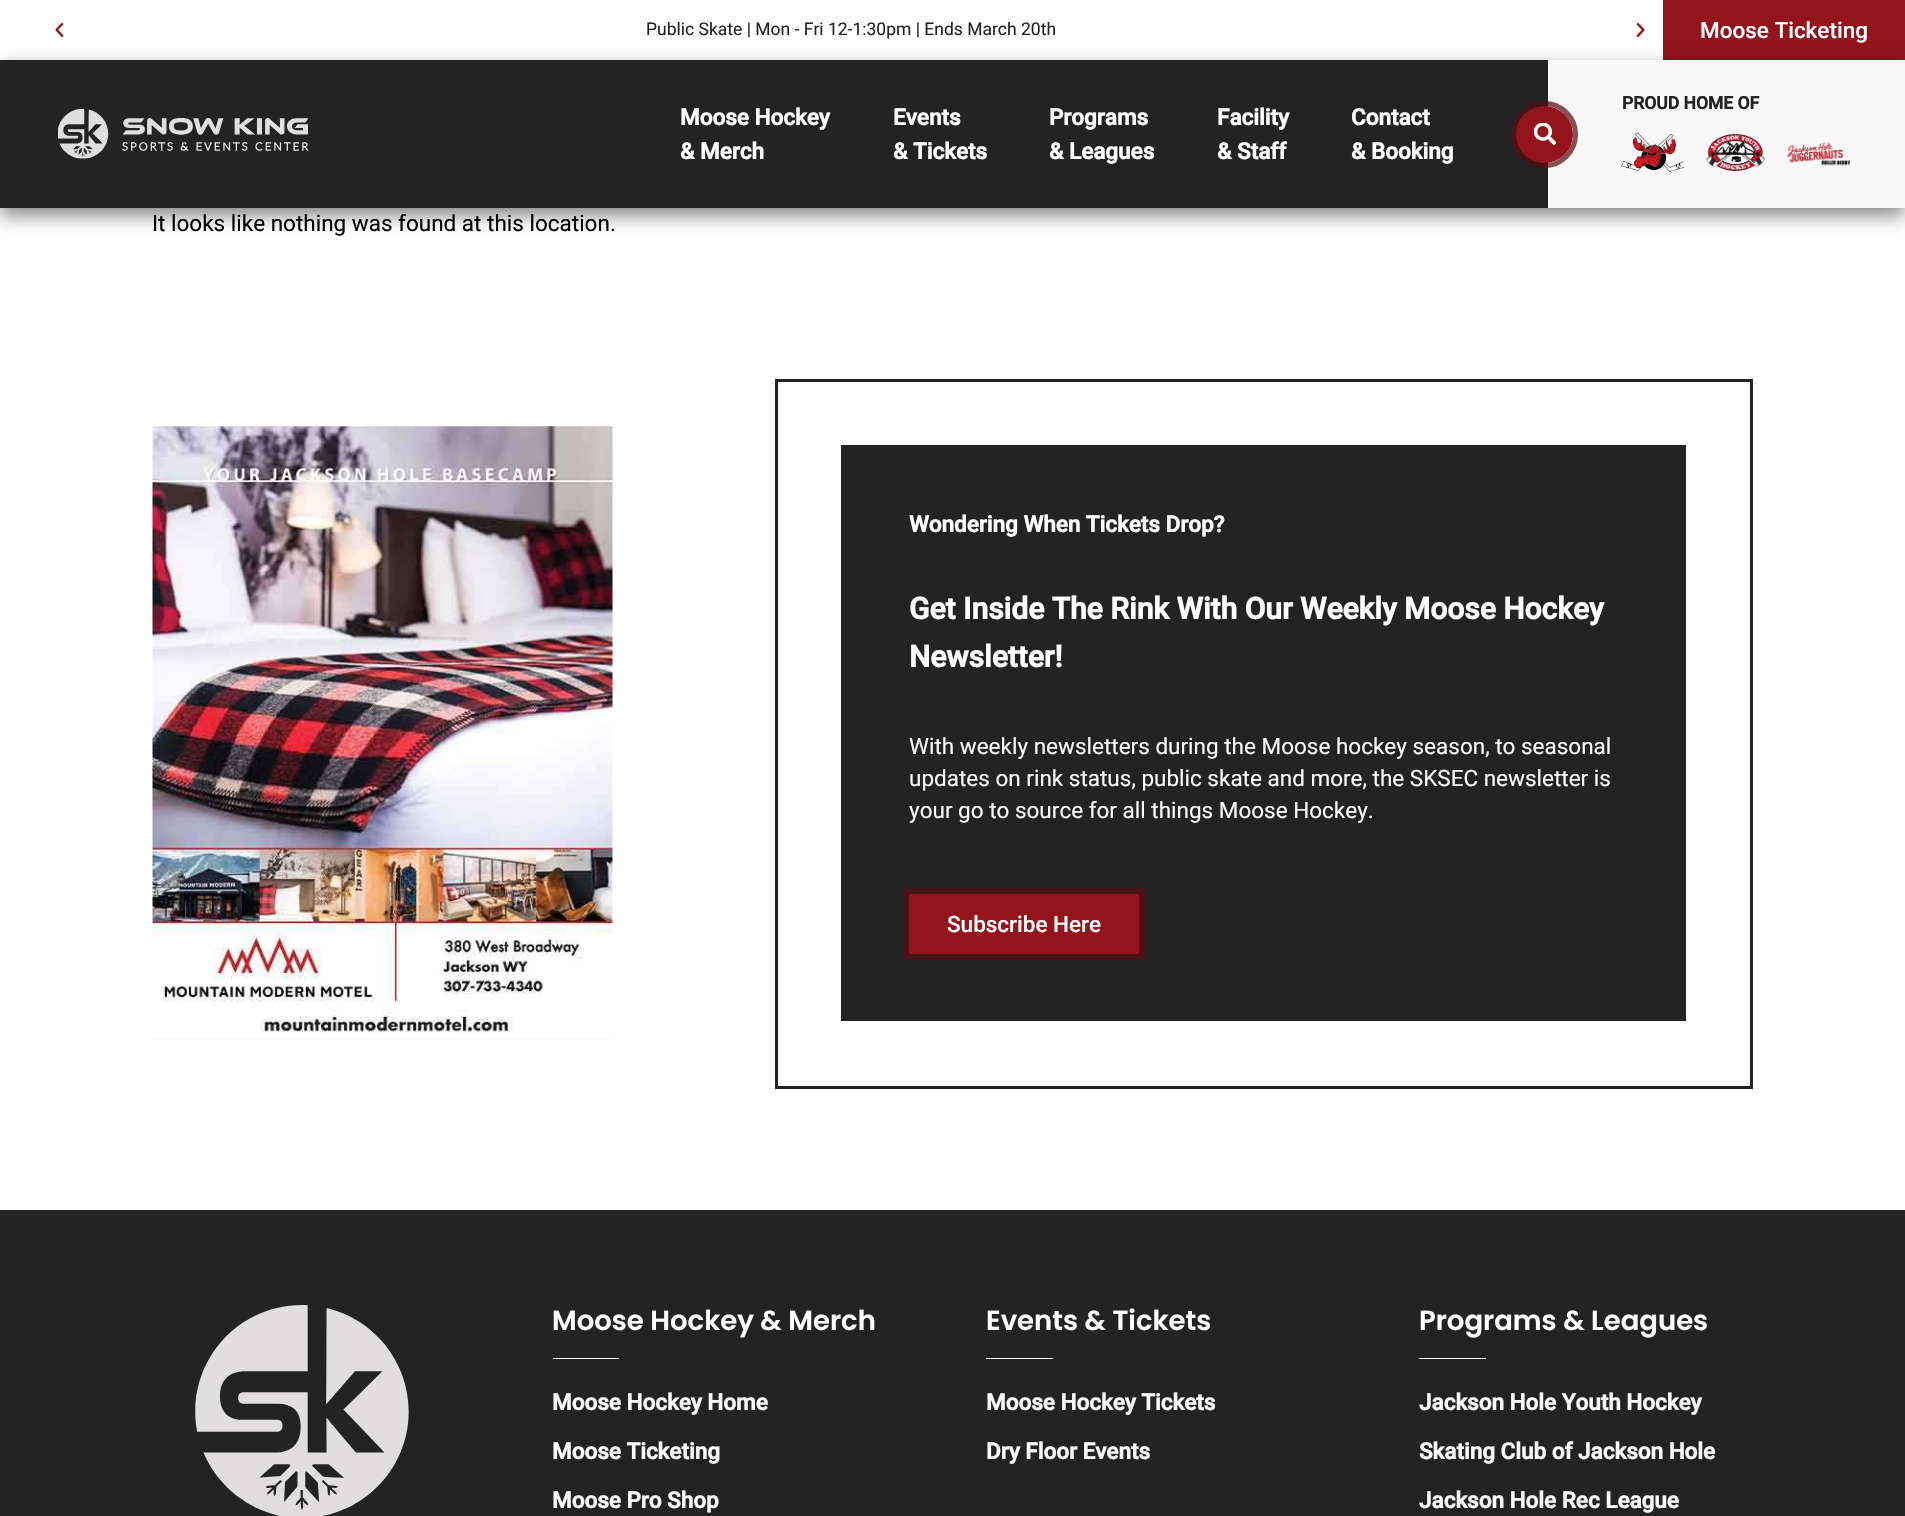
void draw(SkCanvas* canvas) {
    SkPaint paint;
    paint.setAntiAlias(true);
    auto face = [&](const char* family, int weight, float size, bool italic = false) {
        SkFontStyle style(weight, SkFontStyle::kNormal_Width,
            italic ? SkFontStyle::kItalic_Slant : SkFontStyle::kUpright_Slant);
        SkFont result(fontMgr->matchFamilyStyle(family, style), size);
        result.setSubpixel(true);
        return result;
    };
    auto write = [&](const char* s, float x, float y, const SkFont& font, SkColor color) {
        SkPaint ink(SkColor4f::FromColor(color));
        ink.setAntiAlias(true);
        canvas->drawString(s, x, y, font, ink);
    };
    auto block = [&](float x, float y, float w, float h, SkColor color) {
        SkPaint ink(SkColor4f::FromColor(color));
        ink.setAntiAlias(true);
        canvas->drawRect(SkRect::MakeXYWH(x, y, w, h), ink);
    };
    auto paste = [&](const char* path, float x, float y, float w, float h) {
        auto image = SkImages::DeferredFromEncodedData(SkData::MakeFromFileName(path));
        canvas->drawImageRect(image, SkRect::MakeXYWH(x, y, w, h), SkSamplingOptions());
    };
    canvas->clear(SK_ColorWHITE);
    paste("pic1.png", 55, 23, 9, 14);
    auto kFont1 = face("Roboto", 400, 17.5f);
    write("Public Skate | Mon - Fri 12-1:30pm | Ends March 20th", 646, 35, kFont1, SkColorSetRGB(35, 35, 35));
    paste("pic2.png", 1636, 23, 9, 14);
    block(1663, 0, 242, 60, SkColorSetRGB(147, 20, 27));
    auto kFont2 = face("Roboto", 500, 22.5f);
    write("Moose Ticketing", 1700, 38, kFont2, SK_ColorWHITE);
    paint.setColor(SkColorSetARGB(128, 0, 0, 0));
    paint.setMaskFilter(SkMaskFilter::MakeBlur(kNormal_SkBlurStyle, 9));
    canvas->drawRect(SkRect::MakeXYWH(0, 68, 1905, 147), paint);
    paint.setMaskFilter(nullptr);
    block(0, 60, 1548, 148, SkColorSetRGB(35, 35, 35));
    block(1548, 60, 357, 148, SkColorSetRGB(248, 248, 248));
    auto kFont3 = face("Roboto", 700, 17.5f);
    write("PROUD HOME OF", 1622, 109, kFont3, SkColorSetRGB(35, 35, 35));
    paste("pic3.png", 1621, 132, 63, 40);
    paste("pic4.png", 1706, 133, 59, 39);
    paste("pic5.png", 1787, 142, 63, 24);
    paste("pic6.png", 58, 109, 251, 50);
    auto kFont4 = face("Roboto", 700, 22.5f);
    write("Moose Hockey", 680, 125, kFont4, SK_ColorWHITE);
    write("& Merch", 680, 159, kFont4, SK_ColorWHITE);
    write("Events", 893, 125, kFont4, SK_ColorWHITE);
    write("& Tickets", 893, 159, kFont4, SK_ColorWHITE);
    write("Programs", 1049, 125, kFont4, SK_ColorWHITE);
    write("& Leagues", 1049, 159, kFont4, SK_ColorWHITE);
    write("Facility", 1217, 125, kFont4, SK_ColorWHITE);
    write("& Staff", 1217, 159, kFont4, SK_ColorWHITE);
    write("Contact", 1351, 125, kFont4, SK_ColorWHITE);
    write("& Booking", 1351, 159, kFont4, SK_ColorWHITE);
    paint.setStyle(SkPaint::kStroke_Style);
    paint.setStrokeWidth(5);
    paint.setColor(SkColorSetARGB(181, 84, 11, 14));
    canvas->drawCircle(1544.5f, 134.5f, 31, paint);
    paint.setStyle(SkPaint::kFill_Style);
    paint.setColor(SkColorSetRGB(147, 20, 27));
    canvas->drawCircle(1544.5f, 134.5f, 28.5f, paint);
    paste("pic7.png", 1534, 123, 22, 22);
    auto kFont5 = face("Roboto", 400, 22.5f);
    write("It looks like nothing was found at this location.", 152, 231, kFont5, SK_ColorBLACK);
    paste("pic8.png", 152, 426, 461, 614);
    paint.setStyle(SkPaint::kStroke_Style);
    paint.setStrokeWidth(3);
    paint.setColor(SkColorSetRGB(35, 35, 35));
    canvas->drawRect(SkRect::MakeXYWH(776.5f, 380.5f, 975, 707), paint);
    block(841, 445, 845, 576, SkColorSetRGB(35, 35, 35));
    write("Wondering When Tickets Drop?", 909, 532, kFont4, SK_ColorWHITE);
    auto kFont6 = face("Roboto", 700, 30);
    write("Get Inside The Rink With Our Weekly Moose Hockey", 909, 619, kFont6, SK_ColorWHITE);
    write("Newsletter!", 909, 667, kFont6, SK_ColorWHITE);
    write("With weekly newsletters during the Moose hockey season, to seasonal", 909, 754, kFont5, SkColorSetRGB(248, 248, 248));
    write("updates on rink status, public skate and more, the SKSEC newsletter is", 909, 786, kFont5, SkColorSetRGB(248, 248, 248));
    write("your go to source for all things Moose Hockey.", 909, 818, kFont5, SkColorSetRGB(248, 248, 248));
    paint.setStyle(SkPaint::kFill_Style);
    paint.setColor(SkColorSetARGB(181, 84, 11, 14));
    paint.setMaskFilter(SkMaskFilter::MakeBlur(kNormal_SkBlurStyle, 0.5f));
    canvas->drawRect(SkRect::MakeXYWH(903, 888, 242, 72), paint);
    paint.setMaskFilter(nullptr);
    block(909, 894, 230, 60, SkColorSetRGB(147, 20, 27));
    write("Subscribe Here", 947, 932, kFont2, SK_ColorWHITE);
    block(0, 1210, 1905, 306, SkColorSetRGB(35, 35, 35));
    paste("pic9.png", 195, 1305, 214, 211);
    auto kFont7 = face("Poppins", 600, 27.5f);
    write("Moose Hockey & Merch", 552, 1330, kFont7, SK_ColorWHITE);
    block(553, 1358, 66, 1, SK_ColorWHITE);
    write("Moose Hockey Home", 552, 1410, kFont4, SkColorSetRGB(248, 248, 248));
    write("Moose Ticketing", 552, 1459, kFont4, SkColorSetRGB(248, 248, 248));
    write("Moose Pro Shop", 552, 1508, kFont4, SkColorSetRGB(248, 248, 248));
    write("Events & Tickets", 986, 1330, kFont7, SK_ColorWHITE);
    block(986, 1358, 67, 1, SK_ColorWHITE);
    write("Moose Hockey Tickets", 986, 1410, kFont4, SkColorSetRGB(248, 248, 248));
    write("Dry Floor Events", 986, 1459, kFont4, SkColorSetRGB(248, 248, 248));
    write("Programs & Leagues", 1419, 1330, kFont7, SK_ColorWHITE);
    block(1419, 1358, 67, 1, SK_ColorWHITE);
    write("Jackson Hole Youth Hockey", 1419, 1410, kFont4, SkColorSetRGB(248, 248, 248));
    write("Skating Club of Jackson Hole", 1419, 1459, kFont4, SkColorSetRGB(248, 248, 248));
    write("Jackson Hole Rec League", 1419, 1508, kFont4, SkColorSetRGB(248, 248, 248));
}
